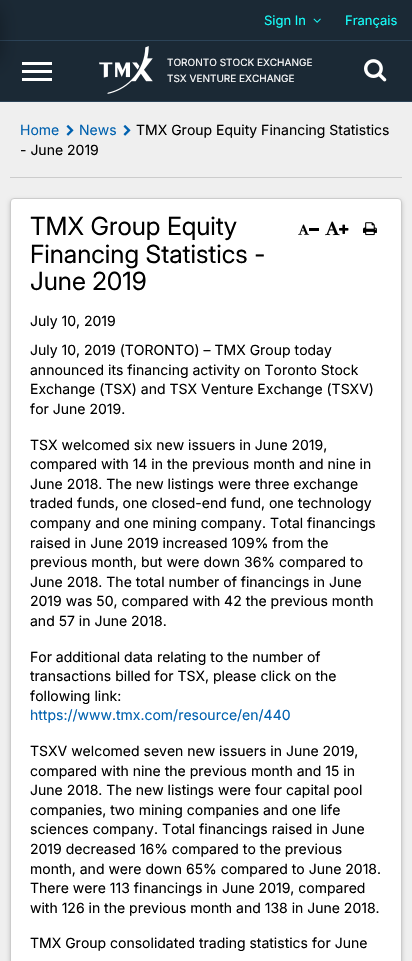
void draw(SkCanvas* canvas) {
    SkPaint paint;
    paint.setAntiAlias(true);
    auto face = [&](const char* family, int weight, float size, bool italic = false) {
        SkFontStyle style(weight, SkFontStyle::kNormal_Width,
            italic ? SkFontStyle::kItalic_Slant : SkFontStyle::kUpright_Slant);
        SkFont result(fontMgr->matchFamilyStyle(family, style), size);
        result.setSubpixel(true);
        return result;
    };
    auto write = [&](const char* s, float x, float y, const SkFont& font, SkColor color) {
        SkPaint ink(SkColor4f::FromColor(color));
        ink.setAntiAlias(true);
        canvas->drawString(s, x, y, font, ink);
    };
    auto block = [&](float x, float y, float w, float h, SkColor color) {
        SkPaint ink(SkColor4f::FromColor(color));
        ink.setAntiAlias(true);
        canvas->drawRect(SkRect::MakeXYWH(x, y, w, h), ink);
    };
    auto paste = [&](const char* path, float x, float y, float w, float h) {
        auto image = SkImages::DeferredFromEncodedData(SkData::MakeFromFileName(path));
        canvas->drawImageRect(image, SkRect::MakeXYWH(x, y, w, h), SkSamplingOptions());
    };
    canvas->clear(SkColorSetRGB(239, 239, 239));
    block(0, 0, 412, 101, SkColorSetRGB(27, 41, 53));
    block(0, 40, 412, 1, SkColorSetRGB(44, 67, 87));
    paint.setColor(SkColorSetARGB(117, 0, 0, 0));
    paint.setMaskFilter(SkMaskFilter::MakeBlur(kNormal_SkBlurStyle, 11));
    canvas->drawRect(SkRect::MakeXYWH(-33, 9, 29, 51), paint);
    paint.setMaskFilter(nullptr);
    auto kFont1 = face("Inter", 400, 13);
    write("Sign In", 264, 25, kFont1, SkColorSetRGB(22, 255, 251));
    paste("pic1.png", 313, 18, 8, 5);
    write("Français", 345, 25, kFont1, SkColorSetRGB(22, 255, 251));
    block(0, 101, 412, 1, SkColorSetRGB(44, 67, 87));
    paste("pic2.png", 22, 62, 30, 19);
    paste("pic3.png", 99, 46, 54, 48);
    auto kFont2 = face("Inter", 400, 10);
    write("TORONTO STOCK EXCHANGE", 167, 66, kFont2, SK_ColorWHITE);
    write("TSX VENTURE EXCHANGE", 167, 82, kFont2, SK_ColorWHITE);
    paste("pic4.png", 364, 59, 23, 23);
    block(10, 177, 392, 1, SkColorSetRGB(204, 204, 204));
    auto kFont3 = face("Inter", 400, 14);
    write("Home", 20, 135, kFont3, SkColorSetRGB(0, 97, 175));
    paste("pic5.png", 66, 125, 8, 11);
    write("News", 79, 135, kFont3, SkColorSetRGB(0, 97, 175));
    paste("pic5.png", 123, 125, 8, 11);
    write("TMX Group Equity Financing Statistics", 136, 135, kFont3, SK_ColorBLACK);
    write("- June 2019", 20, 155, kFont3, SK_ColorBLACK);
    paint.setColor(SkColorSetARGB(51, 0, 0, 0));
    paint.setMaskFilter(SkMaskFilter::MakeBlur(kNormal_SkBlurStyle, 2));
    canvas->drawRoundRect(SkRect::MakeXYWH(10, 200, 392, 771), 4, 4, paint);
    paint.setMaskFilter(nullptr);
    paint.setColor(SK_ColorWHITE);
    canvas->drawRoundRect(SkRect::MakeXYWH(10.5f, 198.5f, 391, 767), 3.5f, 3.5f, paint);
    paint.setStyle(SkPaint::kStroke_Style);
    paint.setStrokeWidth(1);
    paint.setColor(SkColorSetRGB(204, 204, 204));
    canvas->drawRoundRect(SkRect::MakeXYWH(10.5f, 198.5f, 391, 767), 3.5f, 3.5f, paint);
    auto kFont4 = face("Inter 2", 400, 25);
    write("TMX Group Equity", 30, 235, kFont4, SK_ColorBLACK);
    write("Financing Statistics -", 30, 263, kFont4, SK_ColorBLACK);
    write("June 2019", 30, 290, kFont4, SK_ColorBLACK);
    paste("pic6.png", 298, 224, 12, 11);
    block(309, 228, 10, 3, SK_ColorBLACK);
    paste("pic7.png", 325, 221, 15, 15);
    paste("pic8.png", 339, 224, 10, 10);
    paste("pic9.png", 363, 222, 14, 14);
    write("July 10, 2019", 30, 326, kFont3, SK_ColorBLACK);
    write("July 10, 2019 (TORONTO) – TMX Group today", 30, 355, kFont3, SK_ColorBLACK);
    write("announced its financing activity on Toronto Stock", 30, 375, kFont3, SK_ColorBLACK);
    write("Exchange (TSX) and TSX Venture Exchange (TSXV)", 30, 394, kFont3, SK_ColorBLACK);
    write("for June 2019.", 30, 414, kFont3, SK_ColorBLACK);
    write("TSX welcomed six new issuers in June 2019,", 30, 450, kFont3, SK_ColorBLACK);
    write("compared with 14 in the previous month and nine in", 30, 469, kFont3, SK_ColorBLACK);
    write("June 2018. The new listings were three exchange", 30, 489, kFont3, SK_ColorBLACK);
    write("traded funds, one closed-end fund, one technology", 30, 508, kFont3, SK_ColorBLACK);
    write("company and one mining company. Total financings", 30, 528, kFont3, SK_ColorBLACK);
    write("raised in June 2019 increased 109% from the", 30, 548, kFont3, SK_ColorBLACK);
    write("previous month, but were down 36% compared to", 30, 567, kFont3, SK_ColorBLACK);
    write("June 2018. The total number of financings in June", 30, 587, kFont3, SK_ColorBLACK);
    write("2019 was 50, compared with 42 the previous month", 30, 606, kFont3, SK_ColorBLACK);
    write("and 57 in June 2018.", 30, 626, kFont3, SK_ColorBLACK);
    write("For additional data relating to the number of", 30, 662, kFont3, SK_ColorBLACK);
    write("transactions billed for TSX, please click on the", 30, 681, kFont3, SK_ColorBLACK);
    write("following link:", 30, 701, kFont3, SK_ColorBLACK);
    write("https://www.tmx.com/resource/en/440", 30, 720, kFont3, SkColorSetRGB(0, 97, 175));
    write("TSXV welcomed seven new issuers in June 2019,", 30, 756, kFont3, SK_ColorBLACK);
    write("compared with nine the previous month and 15 in", 30, 776, kFont3, SK_ColorBLACK);
    write("June 2018. The new listings were four capital pool", 30, 795, kFont3, SK_ColorBLACK);
    write("companies, two mining companies and one life", 30, 815, kFont3, SK_ColorBLACK);
    write("sciences company. Total financings raised in June", 30, 834, kFont3, SK_ColorBLACK);
    write("2019 decreased 16% compared to the previous", 30, 854, kFont3, SK_ColorBLACK);
    write("month, and were down 65% compared to June 2018.", 30, 874, kFont3, SK_ColorBLACK);
    write("There were 113 financings in June 2019, compared", 30, 893, kFont3, SK_ColorBLACK);
    write("with 126 in the previous month and 138 in June 2018.", 30, 913, kFont3, SK_ColorBLACK);
    write("TMX Group consolidated trading statistics for June", 30, 948, kFont3, SK_ColorBLACK);
}
